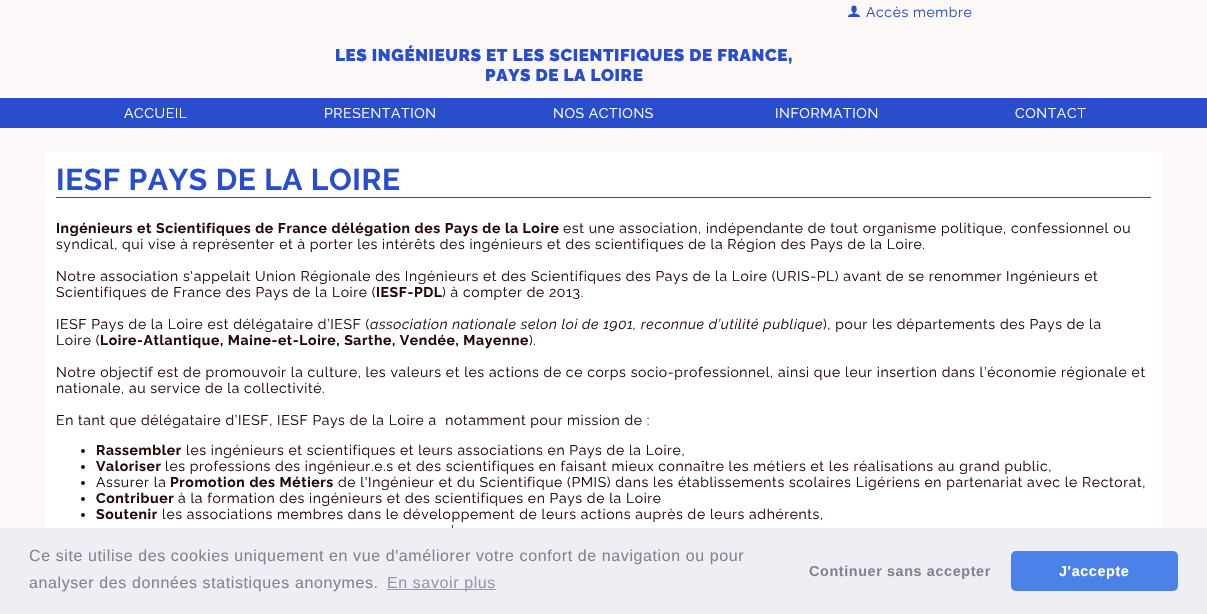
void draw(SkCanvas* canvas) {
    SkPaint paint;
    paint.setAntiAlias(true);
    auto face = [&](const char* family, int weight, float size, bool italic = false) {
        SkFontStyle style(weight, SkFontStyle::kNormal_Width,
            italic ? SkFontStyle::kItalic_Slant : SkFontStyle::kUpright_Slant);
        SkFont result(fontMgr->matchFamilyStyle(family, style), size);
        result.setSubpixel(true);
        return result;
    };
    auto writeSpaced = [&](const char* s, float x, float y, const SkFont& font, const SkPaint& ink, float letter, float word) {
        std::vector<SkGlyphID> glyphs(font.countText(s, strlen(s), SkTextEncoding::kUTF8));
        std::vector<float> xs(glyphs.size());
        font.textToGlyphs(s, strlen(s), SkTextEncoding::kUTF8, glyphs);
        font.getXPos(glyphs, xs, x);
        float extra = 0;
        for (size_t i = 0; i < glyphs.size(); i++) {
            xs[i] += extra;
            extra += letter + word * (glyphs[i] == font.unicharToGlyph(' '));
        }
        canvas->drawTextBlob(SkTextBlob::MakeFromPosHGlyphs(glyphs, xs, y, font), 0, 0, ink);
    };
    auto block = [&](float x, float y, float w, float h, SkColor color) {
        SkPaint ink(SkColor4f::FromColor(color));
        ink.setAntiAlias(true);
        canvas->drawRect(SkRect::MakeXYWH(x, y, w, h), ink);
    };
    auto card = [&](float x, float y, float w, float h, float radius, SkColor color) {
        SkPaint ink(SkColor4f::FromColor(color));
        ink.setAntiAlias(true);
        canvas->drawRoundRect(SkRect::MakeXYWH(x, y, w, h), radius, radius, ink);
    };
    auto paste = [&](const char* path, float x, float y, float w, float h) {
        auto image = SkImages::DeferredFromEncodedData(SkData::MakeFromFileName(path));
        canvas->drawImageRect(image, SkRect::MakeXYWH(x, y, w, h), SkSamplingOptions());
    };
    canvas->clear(SkColorSetRGB(251, 248, 247));
    paste("pic1.png", 847, 5, 14, 12);
    auto kFont1 = face("Raleway", 400, 14);
    paint.setColor(SkColorSetRGB(41, 78, 203));
    writeSpaced("Accès membre", 866, 17, kFont1, paint, 0.6f, 0);
    auto kFont2 = face("Raleway", 900, 17);
    writeSpaced("LES INGÉNIEURS ET LES SCIENTIFIQUES DE FRANCE,", 335, 61, kFont2, paint, 0.6f, 0);
    writeSpaced("PAYS DE LA LOIRE", 485, 81, kFont2, paint, 0.6f, 0);
    block(0, 98, 1207, 30, SkColorSetRGB(41, 78, 203));
    paint.setColor(SK_ColorWHITE);
    writeSpaced("ACCUEIL", 124, 118, kFont1, paint, 0.6f, 0);
    writeSpaced("PRESENTATION", 324, 118, kFont1, paint, 0.6f, 0);
    writeSpaced("NOS ACTIONS", 553, 118, kFont1, paint, 0.6f, 0);
    writeSpaced("INFORMATION", 775, 118, kFont1, paint, 0.6f, 0);
    writeSpaced("CONTACT", 1015, 118, kFont1, paint, 0.6f, 0);
    block(45, 151, 1118, 377, SK_ColorWHITE);
    block(56, 197, 1095, 1, SkColorSetRGB(41, 78, 203));
    auto kFont3 = face("Raleway", 700, 30);
    paint.setColor(SkColorSetRGB(41, 78, 203));
    writeSpaced("IESF PAYS DE LA LOIRE", 56, 190, kFont3, paint, 0.6f, 0);
    auto kFont4 = face("Raleway", 700, 14);
    paint.setColor(SkColorSetRGB(38, 8, 8));
    writeSpaced("Ingénieurs et Scientifiques de France délégation des Pays de la Loire", 56, 233, kFont4, paint, 0.6f, 0);
    writeSpaced("est une association, indépendante de tout organisme politique, confessionnel ou", 563, 233, kFont1, paint, 0.6f, 0);
    writeSpaced("syndical, qui vise à représenter et à porter les intérêts des ingénieurs et des scientifiques de la Région des Pays de la Loire.", 56, 249, kFont1, paint, 0.6f, 0);
    writeSpaced("Notre association s'appelait Union Régionale des Ingénieurs et des Scientifiques des Pays de la Loire (URIS-PL) avant de se renommer Ingénieurs et", 56, 281, kFont1, paint, 0.6f, 0);
    writeSpaced("Scientifiques de France des Pays de la Loire (", 56, 297, kFont1, paint, 0.6f, 0);
    writeSpaced("IESF-PDL", 376, 297, kFont4, paint, 0.6f, 0);
    writeSpaced(") à compter de 2013.", 442, 297, kFont1, paint, 0.6f, 0);
    writeSpaced("IESF Pays de la Loire est délégataire d’IESF (", 56, 329, kFont1, paint, 0.6f, 0);
    auto kFont5 = face("Raleway", 400, 14, true);
    writeSpaced("association nationale selon loi de 1901, reconnue d’utilité publique", 370, 329, kFont5, paint, 0.6f, 0);
    writeSpaced("), pour les départements des Pays de la", 823, 329, kFont1, paint, 0.6f, 0);
    writeSpaced("Loire (", 56, 345, kFont1, paint, 0.6f, 0);
    writeSpaced("Loire-Atlantique, Maine-et-Loire, Sarthe, Vendée, Mayenne", 100, 345, kFont4, paint, 0.6f, 0);
    writeSpaced(").", 529, 345, kFont1, paint, 0.6f, 0);
    writeSpaced("Notre objectif est de promouvoir la culture, les valeurs et les actions de ce corps socio-professionnel, ainsi que leur insertion dans l’économie régionale et", 56, 377, kFont1, paint, 0.6f, 0);
    writeSpaced("nationale, au service de la collectivité.", 56, 393, kFont1, paint, 0.6f, 0);
    writeSpaced("En tant que délégataire d’IESF, IESF Pays de la Loire a  notamment pour mission de :", 56, 425, kFont1, paint, 0.6f, 0);
    canvas->drawCircle(83, 451, 2, paint);
    writeSpaced("Rassembler", 96, 455, kFont4, paint, 0.6f, 0);
    writeSpaced("les ingénieurs et scientifiques et leurs associations en Pays de la Loire,", 186, 455, kFont1, paint, 0.6f, 0);
    canvas->drawCircle(83, 467, 2, paint);
    writeSpaced("Valoriser", 96, 471, kFont4, paint, 0.6f, 0);
    writeSpaced("les professions des ingénieur.e.s et des scientifiques en faisant mieux connaître les métiers et les réalisations au grand public,", 165, 471, kFont1, paint, 0.6f, 0);
    canvas->drawCircle(83, 483, 2, paint);
    writeSpaced("Assurer la", 96, 487, kFont1, paint, 0.6f, 0);
    writeSpaced("Promotion des Métiers", 170, 487, kFont4, paint, 0.6f, 0);
    writeSpaced("de l'Ingénieur et du Scientifique (PMIS) dans les établissements scolaires Ligériens en partenariat avec le Rectorat,", 338, 487, kFont1, paint, 0.6f, 0);
    canvas->drawCircle(83, 499, 2, paint);
    writeSpaced("Contribuer", 96, 503, kFont4, paint, 0.6f, 0);
    writeSpaced("à la formation des ingénieurs et des scientifiques en Pays de la Loire", 178, 503, kFont1, paint, 0.6f, 0);
    canvas->drawCircle(83, 515, 2, paint);
    writeSpaced("Soutenir", 96, 519, kFont4, paint, 0.6f, 0);
    writeSpaced("les associations membres dans le développement de leurs actions auprès de leurs adhérents,", 162, 519, kFont1, paint, 0.6f, 0);
    writeSpaced("'", 451, 535, kFont1, paint, 0.6f, 0);
    block(0, 528, 1207, 86, SkColorSetRGB(237, 239, 245));
    auto kFont6 = face("Liberation Sans", 400, 16);
    paint.setColor(SkColorSetRGB(131, 131, 145));
    writeSpaced("Ce site utilise des cookies uniquement en vue d'améliorer votre confort de navigation ou pour", 29, 561, kFont6, paint, 0.6f, 0);
    writeSpaced("analyser des données statistiques anonymes.", 29, 588, kFont6, paint, 0.6f, 0);
    block(387, 589, 109, 1, SkColorSetRGB(152, 153, 165));
    paint.setColor(SkColorSetRGB(152, 153, 165));
    writeSpaced("En savoir plus", 387, 588, kFont6, paint, 0.6f, 0);
    auto kFont7 = face("Liberation Sans", 700, 14.4f);
    paint.setColor(SkColorSetRGB(131, 131, 145));
    writeSpaced("Continuer sans accepter", 809, 576, kFont7, paint, 0.6f, 0);
    card(1011, 551, 167, 40, 5, SkColorSetRGB(75, 129, 232));
    paint.setColor(SK_ColorWHITE);
    writeSpaced("J'accepte", 1059, 576, kFont7, paint, 0.6f, 0);
}
